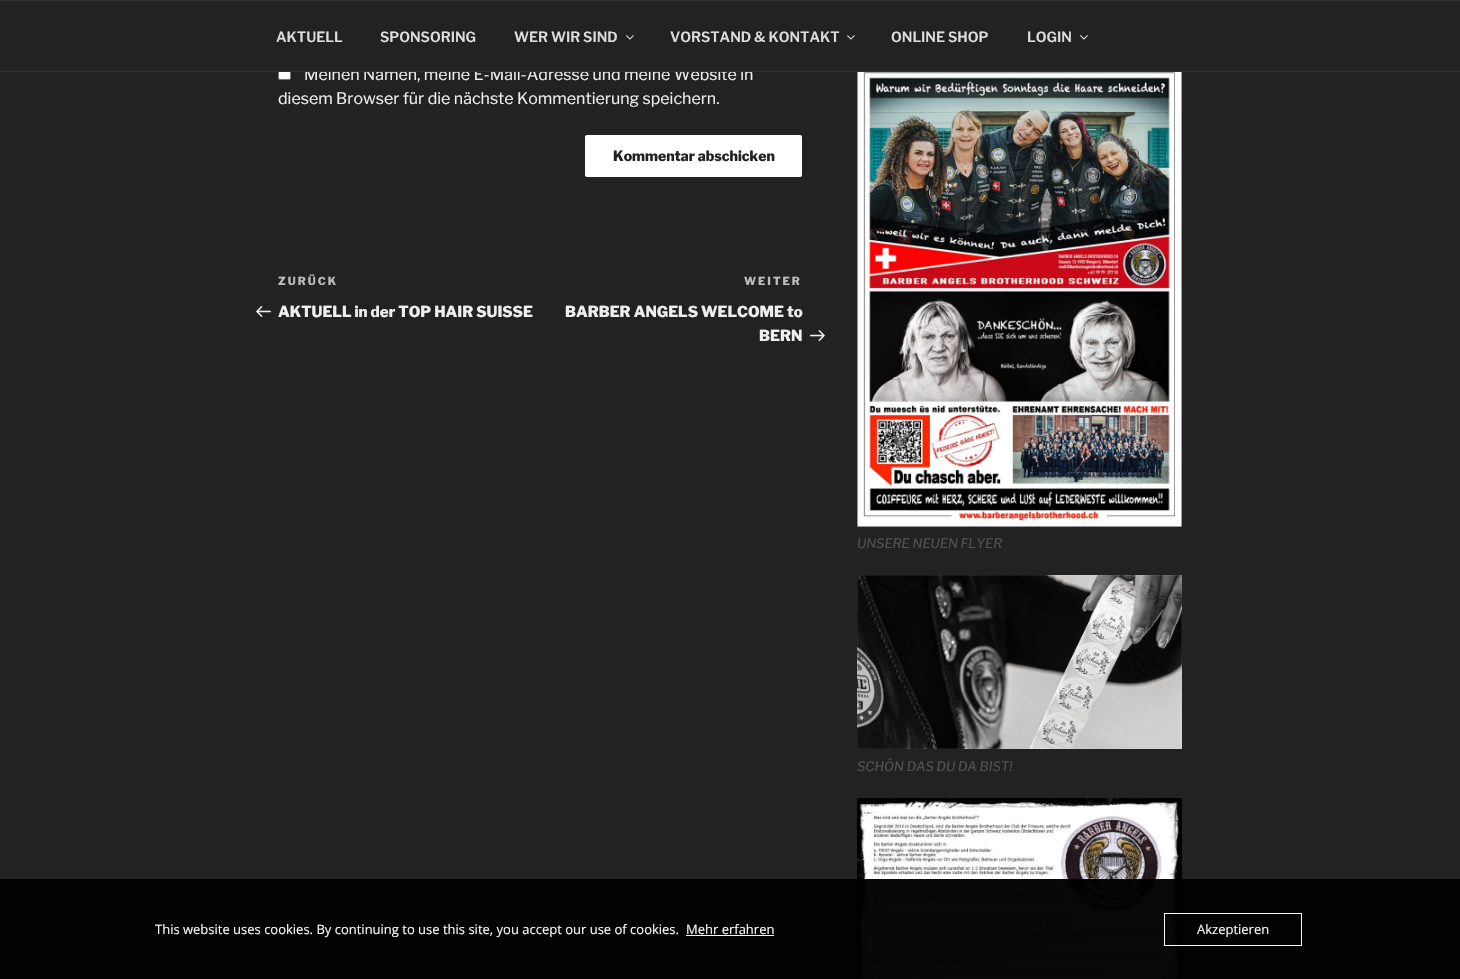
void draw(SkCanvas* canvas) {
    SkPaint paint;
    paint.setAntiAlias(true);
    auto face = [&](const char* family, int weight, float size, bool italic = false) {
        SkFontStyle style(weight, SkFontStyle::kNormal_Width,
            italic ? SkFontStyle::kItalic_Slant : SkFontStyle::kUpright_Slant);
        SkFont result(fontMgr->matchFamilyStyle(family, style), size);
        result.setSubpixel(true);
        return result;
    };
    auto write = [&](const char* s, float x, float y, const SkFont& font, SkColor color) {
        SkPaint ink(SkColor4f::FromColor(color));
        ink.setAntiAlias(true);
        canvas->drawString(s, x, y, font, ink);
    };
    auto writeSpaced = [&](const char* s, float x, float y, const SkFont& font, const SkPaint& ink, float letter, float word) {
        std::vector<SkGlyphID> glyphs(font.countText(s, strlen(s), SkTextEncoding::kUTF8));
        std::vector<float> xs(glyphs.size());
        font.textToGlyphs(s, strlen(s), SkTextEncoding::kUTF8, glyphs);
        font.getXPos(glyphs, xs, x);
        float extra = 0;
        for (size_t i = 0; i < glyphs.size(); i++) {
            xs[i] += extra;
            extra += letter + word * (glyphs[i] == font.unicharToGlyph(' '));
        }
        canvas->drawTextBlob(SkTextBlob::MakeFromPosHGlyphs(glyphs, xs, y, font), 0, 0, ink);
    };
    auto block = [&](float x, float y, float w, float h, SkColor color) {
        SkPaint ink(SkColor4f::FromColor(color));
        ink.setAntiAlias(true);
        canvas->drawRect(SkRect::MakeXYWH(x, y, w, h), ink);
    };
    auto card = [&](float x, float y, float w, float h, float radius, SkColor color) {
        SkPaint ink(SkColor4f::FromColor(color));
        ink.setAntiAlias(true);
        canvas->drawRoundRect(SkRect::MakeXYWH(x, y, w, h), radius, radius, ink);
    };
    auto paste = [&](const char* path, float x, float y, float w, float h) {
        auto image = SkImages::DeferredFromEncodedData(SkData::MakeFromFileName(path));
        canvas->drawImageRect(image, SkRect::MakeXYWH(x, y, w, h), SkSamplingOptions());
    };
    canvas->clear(SkColorSetRGB(34, 34, 34));
    paint.setColor(SK_ColorWHITE);
    canvas->drawRoundRect(SkRect::MakeXYWH(278.5f, 67.5f, 12, 12), 1.5f, 1.5f, paint);
    paint.setStyle(SkPaint::kStroke_Style);
    paint.setStrokeWidth(1);
    paint.setColor(SkColorSetRGB(118, 118, 118));
    canvas->drawRoundRect(SkRect::MakeXYWH(278.5f, 67.5f, 12, 12), 1.5f, 1.5f, paint);
    auto kFont1 = face("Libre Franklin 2", 100, 16);
    write("Meinen Namen, meine E-Mail-Adresse und meine Website in", 304, 80, kFont1, SkColorSetRGB(238, 238, 238));
    block(278, 67, 466, 4, SkColorSetRGB(34, 34, 34));
    block(0, 0, 1460, 1, SkColorSetRGB(51, 51, 51));
    block(0, 71, 1460, 1, SkColorSetRGB(51, 51, 51));
    auto kFont2 = face("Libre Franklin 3", 100, 14);
    write("AKTUELL", 276, 42, kFont2, SkColorSetRGB(221, 221, 221));
    write("SPONSORING", 380, 42, kFont2, SkColorSetRGB(221, 221, 221));
    write("WER WIR SIND", 514, 42, kFont2, SkColorSetRGB(221, 221, 221));
    paste("pic1.png", 626, 35, 8, 5);
    write("VORSTAND & KONTAKT", 670, 42, kFont2, SkColorSetRGB(221, 221, 221));
    paste("pic1.png", 847, 35, 8, 5);
    write("ONLINE SHOP", 891, 42, kFont2, SkColorSetRGB(221, 221, 221));
    write("LOGIN", 1027, 42, kFont2, SkColorSetRGB(221, 221, 221));
    paste("pic1.png", 1080, 35, 8, 5);
    write("diesem Browser für die nächste Kommentierung speichern.", 278, 104, kFont1, SkColorSetRGB(238, 238, 238));
    card(585, 135, 217, 42, 2, SK_ColorWHITE);
    auto kFont3 = face("Libre Franklin", 100, 14);
    write("Kommentar abschicken", 613, 161, kFont3, SkColorSetRGB(34, 34, 34));
    auto kFont4 = face("Libre Franklin", 100, 11);
    paint.setStyle(SkPaint::kFill_Style);
    paint.setColor(SkColorSetRGB(187, 187, 187));
    writeSpaced("ZURÜCK", 278, 285, kFont4, paint, 2, 0);
    paste("pic2.png", 256, 306, 15, 11);
    auto kFont5 = face("Libre Franklin", 100, 15);
    write("AKTUELL in der TOP HAIR SUISSE", 278, 317, kFont5, SkColorSetRGB(238, 238, 238));
    writeSpaced("WEITER", 744, 285, kFont4, paint, 2, 0);
    write("BARBER ANGELS WELCOME to", 565, 317, kFont5, SkColorSetRGB(238, 238, 238));
    write("BERN", 759, 341, kFont5, SkColorSetRGB(238, 238, 238));
    paste("pic3.png", 810, 330, 15, 12);
    paste("pic4.png", 857, 72, 325, 455);
    auto kFont6 = face("Libre Franklin", 100, 13, true);
    write("UNSERE NEUEN FLYER", 857, 548, kFont6, SkColorSetRGB(85, 85, 85));
    paste("pic5.png", 857, 575, 325, 174);
    write("SCHÖN DAS DU DA BIST!", 857, 771, kFont6, SkColorSetRGB(85, 85, 85));
    paste("pic6.png", 857, 798, 325, 181);
    block(0, 879, 1460, 100, SkColorSetARGB(247, 0, 0, 0));
    auto kFont7 = face("Open Sans", 400, 13);
    write("This website uses cookies. By continuing to use this site, you accept our use of cookies.", 155, 934, kFont7, SkColorSetRGB(248, 248, 248));
    write("Mehr erfahren", 686, 934, kFont7, SkColorSetRGB(248, 248, 248));
    block(686, 935, 88, 1, SkColorSetRGB(248, 248, 248));
    paint.setStyle(SkPaint::kStroke_Style);
    paint.setColor(SkColorSetARGB(247, 255, 255, 255));
    canvas->drawRect(SkRect::MakeXYWH(1164.5f, 913.5f, 137, 32), paint);
    write("Akzeptieren", 1197, 934, kFont7, SkColorSetRGB(248, 248, 248));
}
